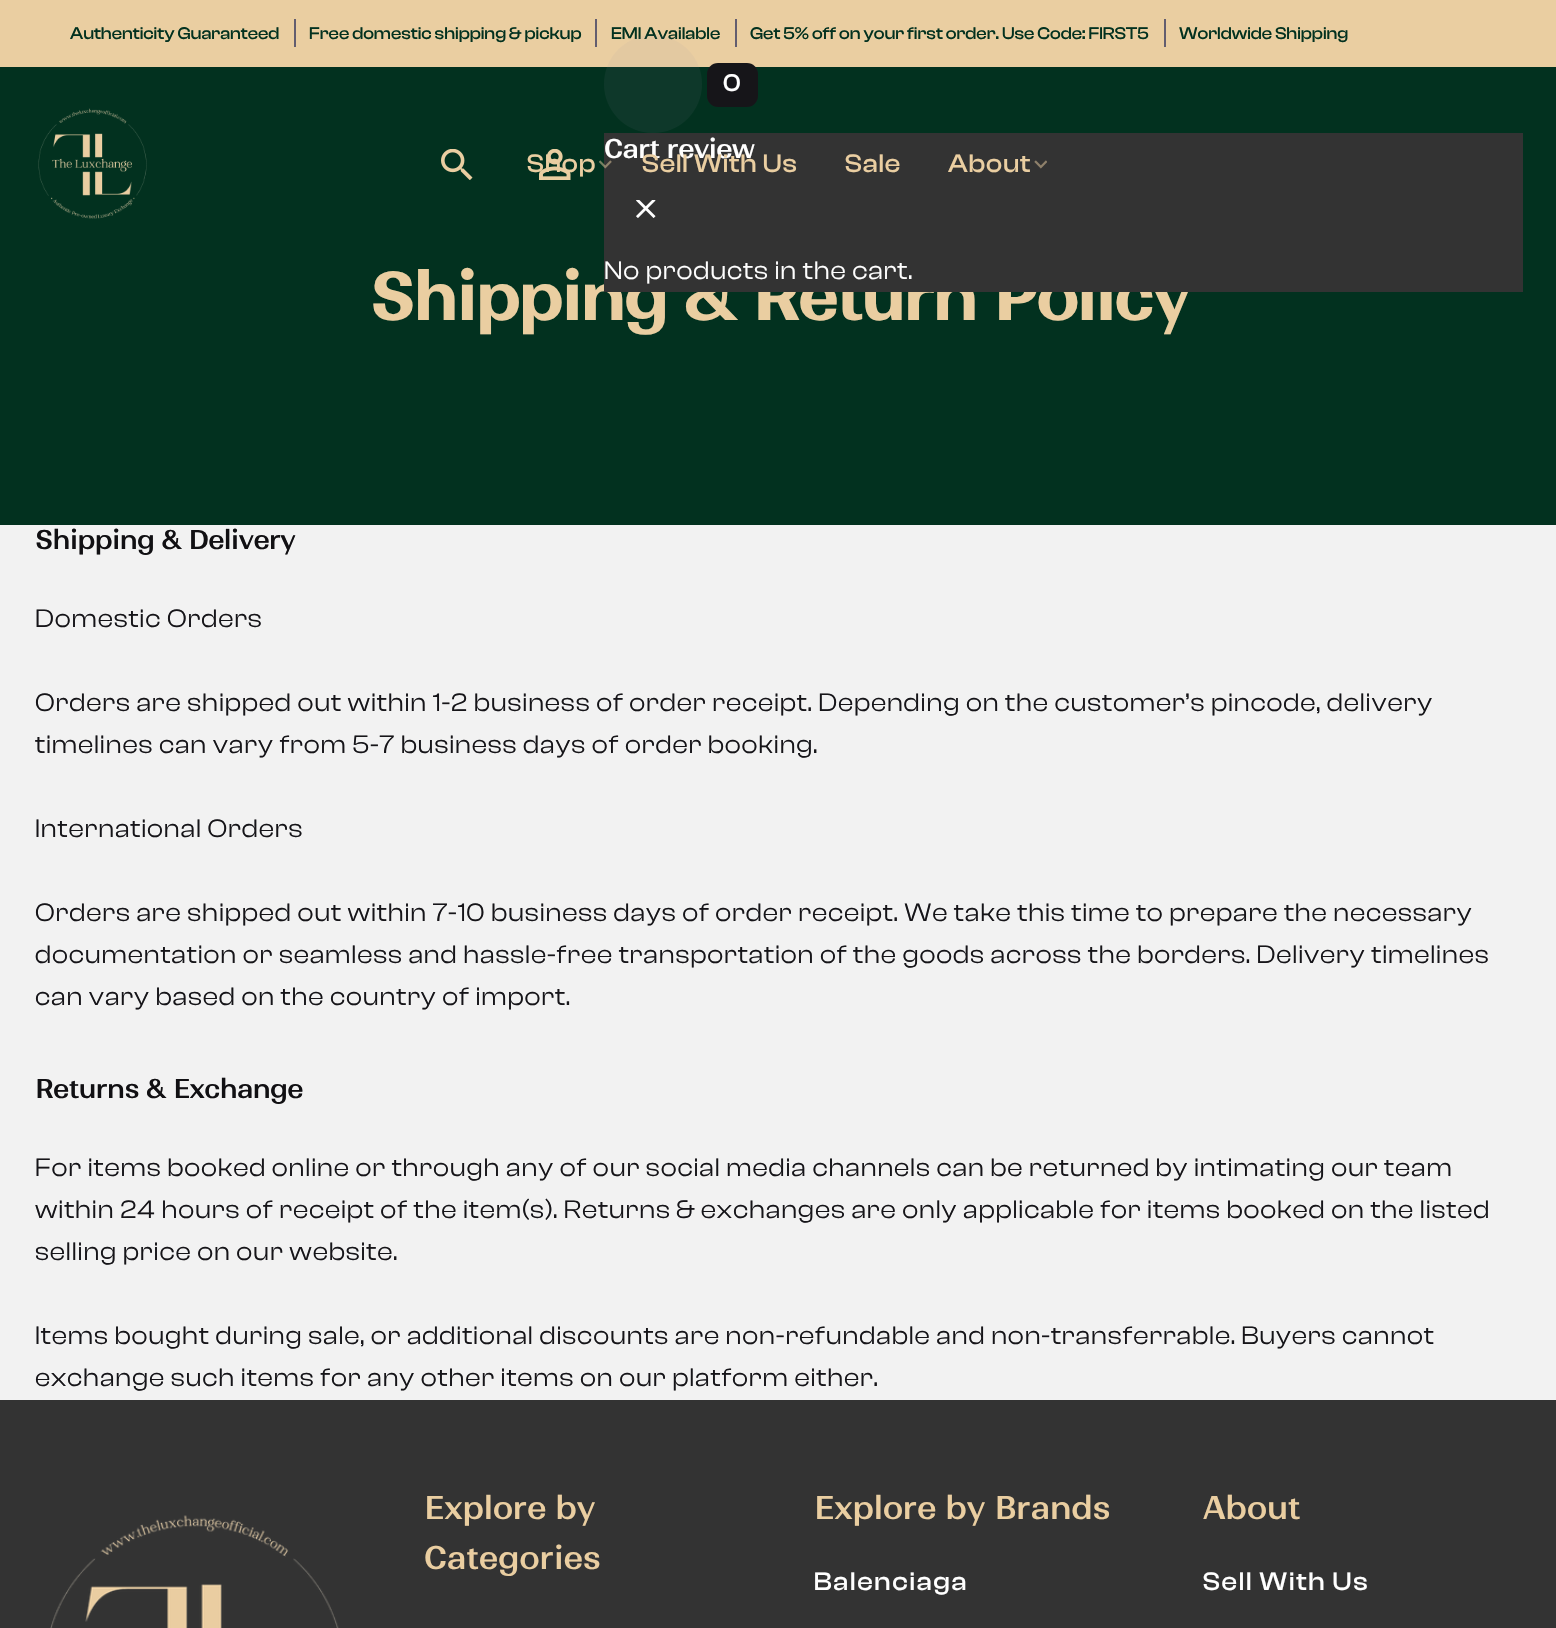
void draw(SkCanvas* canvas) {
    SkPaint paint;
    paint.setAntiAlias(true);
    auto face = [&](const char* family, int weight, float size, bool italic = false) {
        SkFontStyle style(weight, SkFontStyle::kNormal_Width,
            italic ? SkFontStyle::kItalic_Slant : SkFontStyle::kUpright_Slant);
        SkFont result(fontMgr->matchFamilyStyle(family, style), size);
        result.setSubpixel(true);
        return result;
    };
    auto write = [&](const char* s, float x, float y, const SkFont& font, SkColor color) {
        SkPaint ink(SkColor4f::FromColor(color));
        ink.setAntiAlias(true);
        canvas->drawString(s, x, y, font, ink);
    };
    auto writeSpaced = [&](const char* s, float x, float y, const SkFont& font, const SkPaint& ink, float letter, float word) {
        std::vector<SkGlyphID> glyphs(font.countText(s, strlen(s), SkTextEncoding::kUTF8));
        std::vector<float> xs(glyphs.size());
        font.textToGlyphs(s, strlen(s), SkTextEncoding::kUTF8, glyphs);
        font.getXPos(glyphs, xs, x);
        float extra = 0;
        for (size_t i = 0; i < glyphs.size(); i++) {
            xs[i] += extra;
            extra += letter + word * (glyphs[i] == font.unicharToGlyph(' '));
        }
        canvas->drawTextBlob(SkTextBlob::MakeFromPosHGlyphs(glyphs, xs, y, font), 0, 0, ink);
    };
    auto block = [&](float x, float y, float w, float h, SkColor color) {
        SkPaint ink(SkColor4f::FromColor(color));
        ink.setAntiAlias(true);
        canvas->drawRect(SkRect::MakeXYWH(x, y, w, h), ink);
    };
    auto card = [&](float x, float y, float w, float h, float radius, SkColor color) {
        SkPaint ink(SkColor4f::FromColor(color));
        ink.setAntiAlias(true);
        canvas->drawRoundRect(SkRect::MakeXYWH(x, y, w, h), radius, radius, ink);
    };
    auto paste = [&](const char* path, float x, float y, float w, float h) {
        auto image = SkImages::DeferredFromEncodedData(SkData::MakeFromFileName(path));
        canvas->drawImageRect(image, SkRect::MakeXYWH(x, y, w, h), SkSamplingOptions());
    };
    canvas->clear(SkColorSetRGB(242, 242, 242));
    block(0, 0, 1556, 67, SkColorSetRGB(234, 206, 161));
    auto kFont1 = face("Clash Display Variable", 500, 17.5f);
    write("Authenticity Guaranteed", 70, 39, kFont1, SkColorSetRGB(2, 49, 31));
    block(294, 19, 2, 28, SkColorSetRGB(99, 93, 111));
    write("Free domestic shipping & pickup", 309, 39, kFont1, SkColorSetRGB(2, 49, 31));
    block(595, 19, 2, 28, SkColorSetRGB(99, 93, 111));
    write("EMI Available", 611, 39, kFont1, SkColorSetRGB(2, 49, 31));
    block(735, 19, 2, 28, SkColorSetRGB(99, 93, 111));
    write("Get 5% off on your first order. Use Code: FIRST5", 750, 39, kFont1, SkColorSetRGB(2, 49, 31));
    block(1164, 19, 2, 28, SkColorSetRGB(99, 93, 111));
    write("Worldwide Shipping", 1179, 39, kFont1, SkColorSetRGB(2, 49, 31));
    block(0, 67, 1556, 458, SkColorSetRGB(2, 49, 31));
    paste("pic1.png", 38, 108, 109, 111);
    paste("pic2.png", 441, 149, 32, 31);
    paste("pic3.png", 539, 149, 32, 31);
    paint.setColor(SkColorSetARGB(20, 150, 144, 162));
    canvas->drawCircle(653, 84, 49, paint);
    card(707, 63, 51, 44, 11, SkColorSetRGB(22, 21, 25));
    auto kFont2 = face("Clash Display Variable", 500, 25);
    paint.setColor(SK_ColorWHITE);
    writeSpaced("0", 723, 91, kFont2, paint, 0.88f, 0);
    auto kFont3 = face("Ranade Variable", 700, 66.4f);
    paint.setColor(SkColorSetRGB(234, 206, 161));
    writeSpaced("Shipping & Return Policy", 370, 320, kFont3, paint, -2.65f, 0);
    block(604, 133, 919, 159, SkColorSetRGB(51, 51, 51));
    auto kFont4 = face("Ranade Variable", 500, 26.25f);
    paint.setColor(SK_ColorWHITE);
    writeSpaced("Cart review", 604, 158, kFont4, paint, -0.7f, 0);
    paste("pic4.png", 636, 200, 20, 18);
    auto kFont5 = face("Clash Display Variable", 400, 26.25f);
    writeSpaced("No products in the cart.", 604, 279, kFont5, paint, 0.88f, 0);
    auto kFont6 = face("Clash Display Variable", 500, 26.25f);
    paint.setColor(SkColorSetRGB(234, 206, 161));
    writeSpaced("Shop", 527, 172, kFont6, paint, 0.88f, 0);
    paste("pic5.png", 599, 160, 13, 9);
    writeSpaced("Sell With Us", 642, 172, kFont6, paint, 0.88f, 0);
    writeSpaced("Sale", 845, 172, kFont6, paint, 0.88f, 0);
    writeSpaced("About", 948, 172, kFont6, paint, 0.88f, 0);
    paste("pic6.png", 1034, 160, 13, 9);
    paint.setColor(SkColorSetRGB(17, 16, 19));
    writeSpaced("Shipping & Delivery", 35, 549, kFont4, paint, -0.7f, 0);
    paint.setColor(SkColorSetRGB(22, 21, 25));
    writeSpaced("Domestic Orders", 35, 627, kFont5, paint, 0.88f, 0);
    writeSpaced("Orders are shipped out within 1-2 business of order receipt. Depending on the customer’s pincode, delivery", 35, 711, kFont5, paint, 0.88f, 0);
    writeSpaced("timelines can vary from 5-7 business days of order booking.", 35, 753, kFont5, paint, 0.88f, 0);
    writeSpaced("International Orders", 35, 837, kFont5, paint, 0.88f, 0);
    writeSpaced("Orders are shipped out within 7-10 business days of order receipt. We take this time to prepare the necessary", 35, 921, kFont5, paint, 0.88f, 0);
    writeSpaced("documentation or seamless and hassle-free transportation of the goods across the borders. Delivery timelines", 35, 963, kFont5, paint, 0.88f, 0);
    writeSpaced("can vary based on the country of import.", 35, 1005, kFont5, paint, 0.88f, 0);
    paint.setColor(SkColorSetRGB(17, 16, 19));
    writeSpaced("Returns & Exchange", 35, 1098, kFont4, paint, -0.7f, 0);
    paint.setColor(SkColorSetRGB(22, 21, 25));
    writeSpaced("For items booked online or through any of our social media channels can be returned by intimating our team", 35, 1176, kFont5, paint, 0.88f, 0);
    writeSpaced("within 24 hours of receipt of the item(s). Returns & exchanges are only applicable for items booked on the listed", 35, 1218, kFont5, paint, 0.88f, 0);
    writeSpaced("selling price on our website.", 35, 1260, kFont5, paint, 0.88f, 0);
    writeSpaced("Items bought during sale, or additional discounts are non-refundable and non-transferrable. Buyers cannot", 35, 1344, kFont5, paint, 0.88f, 0);
    writeSpaced("exchange such items for any other items on our platform either.", 35, 1386, kFont5, paint, 0.88f, 0);
    block(0, 1400, 1556, 228, SkColorSetRGB(51, 51, 51));
    paste("pic7.png", 50, 1515, 289, 113);
    auto kFont7 = face("Ranade Variable", 500, 31.5f);
    paint.setColor(SkColorSetRGB(234, 206, 161));
    writeSpaced("Explore by", 424, 1519, kFont7, paint, -0.3f, 0);
    writeSpaced("Categories", 424, 1569, kFont7, paint, -0.3f, 0);
    writeSpaced("Explore by Brands", 814, 1519, kFont7, paint, -0.3f, 0);
    paint.setColor(SK_ColorWHITE);
    writeSpaced("Balenciaga", 814, 1590, kFont6, paint, 1.75f, 0);
    paint.setColor(SkColorSetRGB(234, 206, 161));
    writeSpaced("About", 1203, 1519, kFont7, paint, -0.3f, 0);
    paint.setColor(SK_ColorWHITE);
    writeSpaced("Sell With Us", 1203, 1590, kFont6, paint, 1.75f, 0);
}
